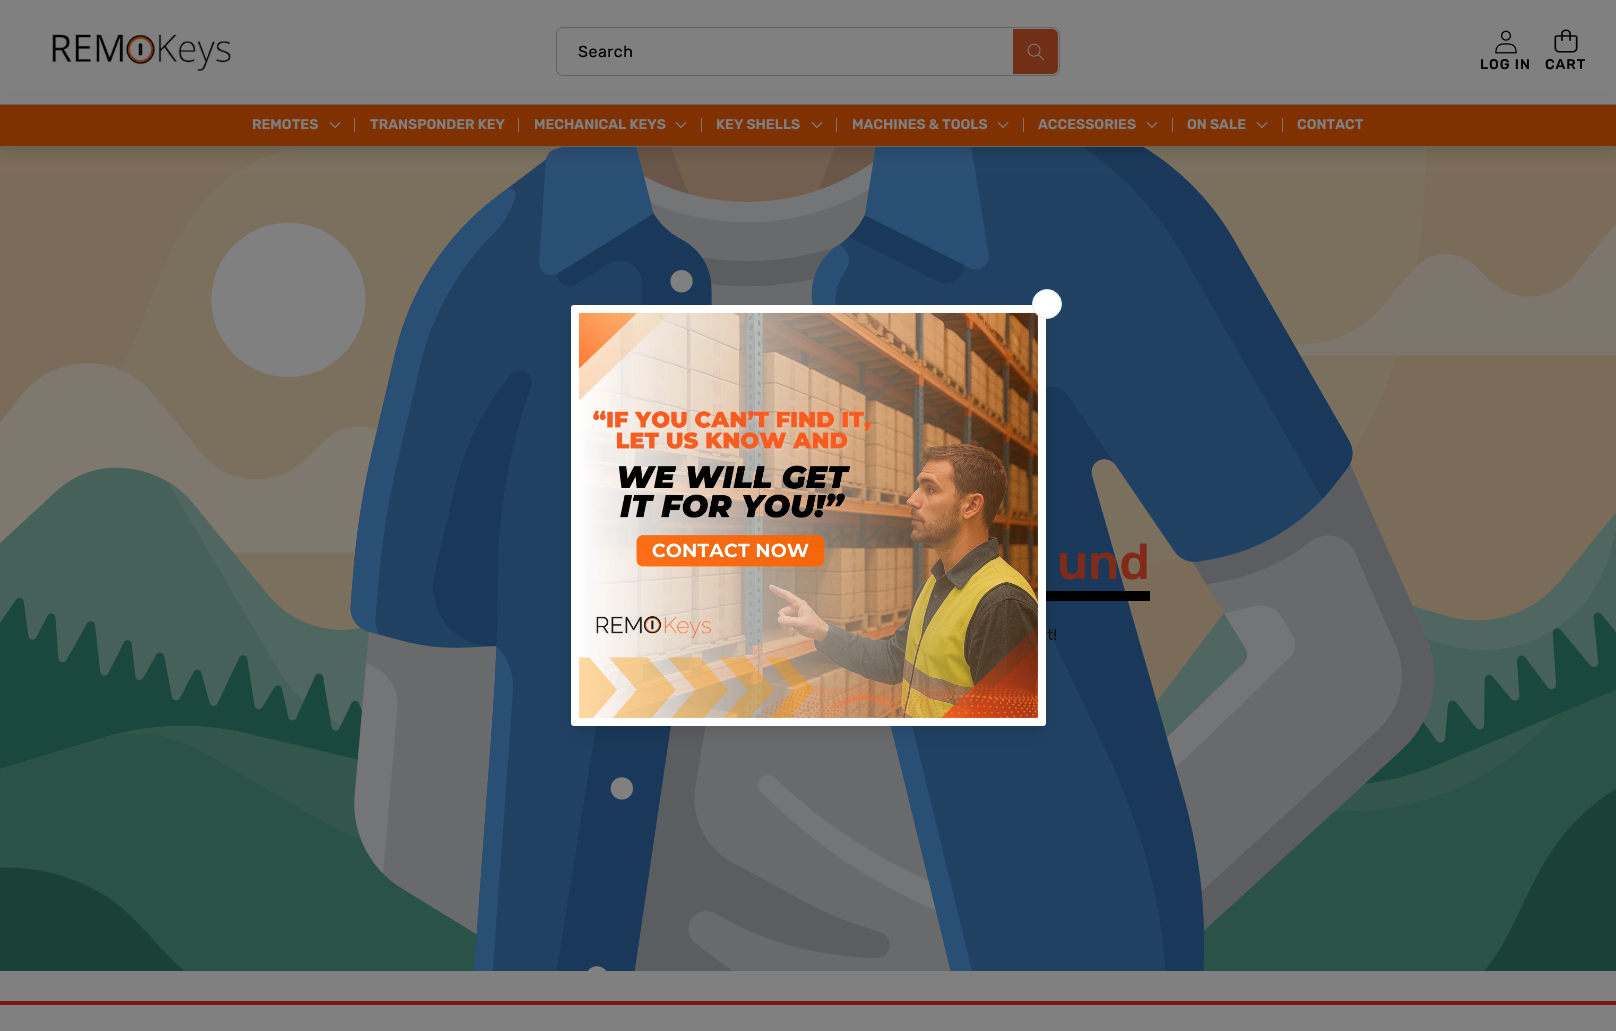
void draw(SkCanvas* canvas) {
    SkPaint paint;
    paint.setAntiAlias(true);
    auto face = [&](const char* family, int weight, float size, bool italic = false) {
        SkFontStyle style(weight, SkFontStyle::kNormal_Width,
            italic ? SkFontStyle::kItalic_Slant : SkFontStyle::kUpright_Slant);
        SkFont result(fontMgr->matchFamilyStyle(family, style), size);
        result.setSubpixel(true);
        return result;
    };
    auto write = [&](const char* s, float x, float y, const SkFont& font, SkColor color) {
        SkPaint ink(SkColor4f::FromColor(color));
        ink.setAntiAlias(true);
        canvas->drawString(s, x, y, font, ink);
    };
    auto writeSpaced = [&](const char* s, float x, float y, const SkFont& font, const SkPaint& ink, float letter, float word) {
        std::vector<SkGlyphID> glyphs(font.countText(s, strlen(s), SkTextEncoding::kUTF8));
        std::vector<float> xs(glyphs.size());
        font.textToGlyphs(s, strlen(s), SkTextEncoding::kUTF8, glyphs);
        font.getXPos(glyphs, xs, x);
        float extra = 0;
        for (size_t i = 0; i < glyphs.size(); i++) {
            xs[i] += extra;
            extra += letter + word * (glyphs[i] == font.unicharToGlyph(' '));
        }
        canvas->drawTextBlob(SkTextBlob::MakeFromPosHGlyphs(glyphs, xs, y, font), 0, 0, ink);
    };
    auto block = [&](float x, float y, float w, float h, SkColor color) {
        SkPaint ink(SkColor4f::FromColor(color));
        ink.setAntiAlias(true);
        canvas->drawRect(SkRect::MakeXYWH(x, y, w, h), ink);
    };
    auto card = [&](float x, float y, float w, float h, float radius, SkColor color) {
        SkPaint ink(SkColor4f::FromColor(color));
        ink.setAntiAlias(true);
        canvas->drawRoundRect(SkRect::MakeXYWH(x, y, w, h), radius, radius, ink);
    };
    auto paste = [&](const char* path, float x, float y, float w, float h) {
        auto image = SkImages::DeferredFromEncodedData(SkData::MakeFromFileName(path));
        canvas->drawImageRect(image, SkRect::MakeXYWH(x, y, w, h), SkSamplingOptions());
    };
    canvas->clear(SkColorSetRGB(128, 128, 128));
    paste("pic7.png", 0, 147, 1616, 824);
    paint.setColor(SkColorSetARGB(51, 9, 9, 9));
    paint.setMaskFilter(SkMaskFilter::MakeBlur(kNormal_SkBlurStyle, 10));
    canvas->drawRect(SkRect::MakeXYWH(0, 107, 1616, 42), paint);
    paint.setMaskFilter(nullptr);
    block(0, 95, 1616, 9, SkColorSetRGB(128, 128, 128));
    block(0, 104, 1616, 1, SkColorSetRGB(100, 100, 100));
    paste("pic1.png", 52, 34, 179, 37);
    paint.setStyle(SkPaint::kStroke_Style);
    paint.setStrokeWidth(1);
    paint.setColor(SkColorSetRGB(97, 97, 97));
    canvas->drawRoundRect(SkRect::MakeXYWH(556.5f, 27.5f, 503, 48), 6.5f, 6.5f, paint);
    auto kFont1 = face("Rubik", 400, 16);
    paint.setStyle(SkPaint::kFill_Style);
    paint.setColor(SK_ColorBLACK);
    writeSpaced("Search", 578, 57, kFont1, paint, 0.5f, 0);
    paint.setColor(SkColorSetRGB(114, 47, 23));
    canvas->drawPath(SkPathBuilder().moveTo(1013, 29).lineTo(1052, 29).cubicTo(1055.5f, 29, 1058, 31.5f, 1058, 35).lineTo(1058, 68).cubicTo(1058, 71.5f, 1055.5f, 74, 1052, 74).lineTo(1013, 74).close().detach(), paint);
    paste("pic2.png", 1027, 43, 17, 18);
    paste("pic3.png", 1495, 30, 22, 24);
    auto kFont2 = face("Rubik", 500, 14);
    paint.setColor(SK_ColorBLACK);
    writeSpaced("LOG IN", 1480, 69, kFont2, paint, 1, 0);
    paste("pic4.png", 1554, 29, 24, 24);
    writeSpaced("CART", 1545, 69, kFont2, paint, 1, 0);
    block(0, 105, 1616, 41, SkColorSetRGB(128, 49, 1));
    block(0, 146, 1616, 1, SkColorSetRGB(100, 100, 100));
    auto kFont3 = face("Rubik", 600, 14);
    write("REMOTES", 252, 129, kFont3, SkColorSetRGB(128, 128, 128));
    paste("pic5.png", 329, 122, 12, 6);
    block(354, 118, 1, 14, SkColorSetRGB(128, 116, 109));
    write("TRANSPONDER KEY", 370, 129, kFont3, SkColorSetRGB(128, 128, 128));
    block(518, 118, 1, 14, SkColorSetRGB(128, 116, 109));
    write("MECHANICAL KEYS", 534, 129, kFont3, SkColorSetRGB(128, 128, 128));
    paste("pic5.png", 675, 122, 12, 6);
    block(701, 118, 1, 14, SkColorSetRGB(128, 116, 109));
    write("KEY SHELLS", 716, 129, kFont3, SkColorSetRGB(128, 128, 128));
    paste("pic5.png", 811, 122, 12, 6);
    block(836, 118, 1, 14, SkColorSetRGB(128, 116, 109));
    write("MACHINES & TOOLS", 852, 129, kFont3, SkColorSetRGB(128, 128, 128));
    paste("pic5.png", 997, 122, 12, 6);
    block(1023, 118, 1, 14, SkColorSetRGB(128, 116, 109));
    write("ACCESSORIES", 1038, 129, kFont3, SkColorSetRGB(128, 128, 128));
    paste("pic5.png", 1146, 122, 12, 6);
    block(1172, 118, 1, 14, SkColorSetRGB(128, 116, 109));
    write("ON SALE", 1187, 129, kFont3, SkColorSetRGB(128, 128, 128));
    paste("pic5.png", 1256, 122, 12, 6);
    block(1282, 118, 1, 14, SkColorSetRGB(128, 116, 109));
    write("CONTACT", 1297, 129, kFont3, SkColorSetRGB(128, 128, 128));
    block(1046, 591, 104, 10, SK_ColorBLACK);
    paint.setColor(SkColorSetARGB(26, 0, 0, 0));
    paint.setMaskFilter(SkMaskFilter::MakeBlur(kNormal_SkBlurStyle, 7.5f));
    canvas->drawRect(SkRect::MakeXYWH(574, 318, 469, 415), paint);
    paint.setMaskFilter(nullptr);
    card(571, 305, 475, 421, 3, SK_ColorWHITE);
    paste("pic6.png", 578, 312, 460, 406);
    paint.setColor(SK_ColorWHITE);
    canvas->drawCircle(1047, 304, 14.5f, paint);
    paint.setStyle(SkPaint::kStroke_Style);
    paint.setColor(SkColorSetRGB(226, 232, 240));
    canvas->drawCircle(1047, 304, 14.5f, paint);
    auto kFont4 = face("Rubik", 500, 50);
    write("und", 1057, 579, kFont4, SkColorSetRGB(128, 42, 25));
    write("t!", 1047, 640, kFont1, SkColorSetRGB(18, 18, 18));
    block(0, 1001, 1616, 4, SkColorSetRGB(122, 22, 18));
}
